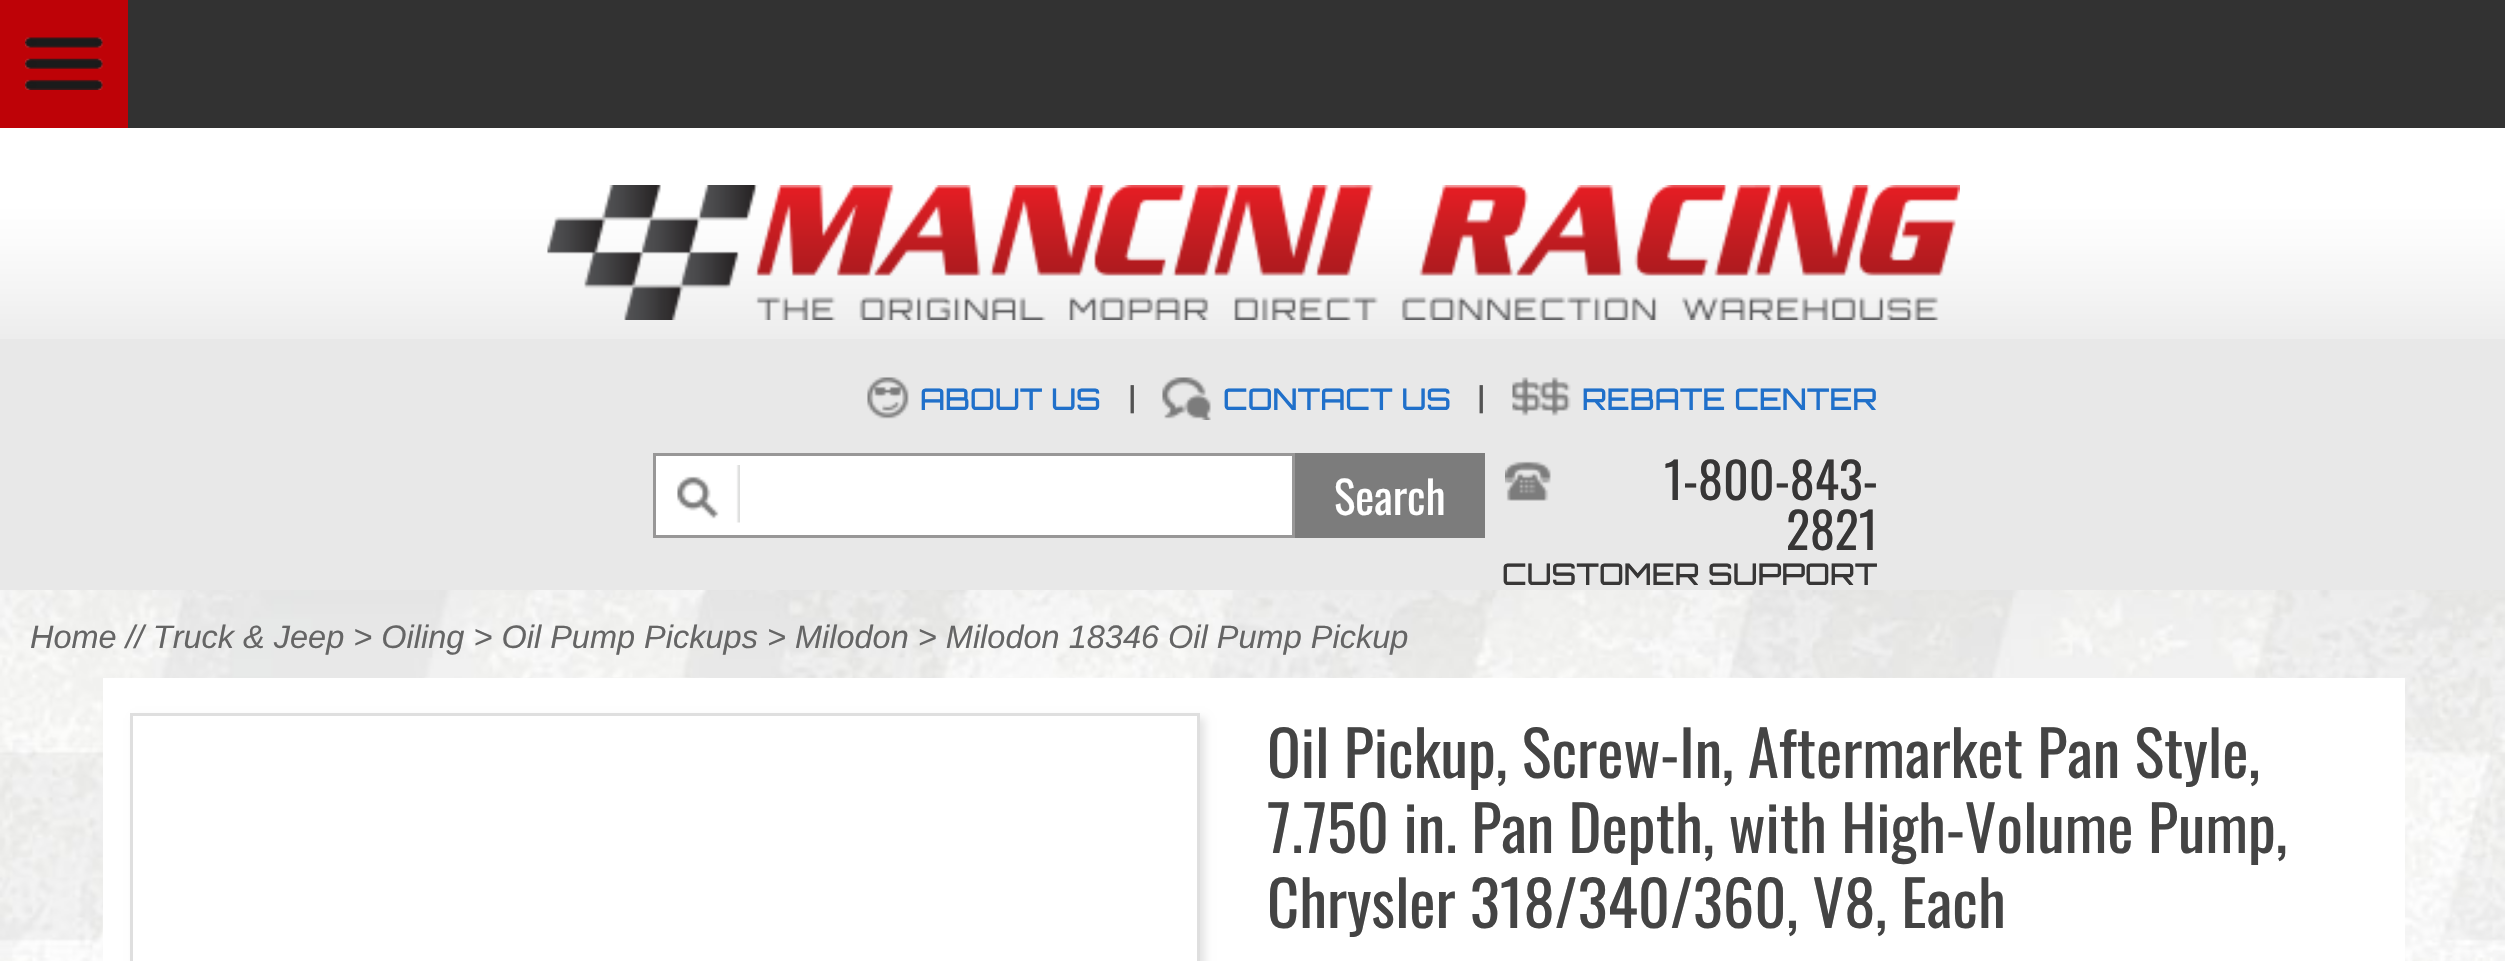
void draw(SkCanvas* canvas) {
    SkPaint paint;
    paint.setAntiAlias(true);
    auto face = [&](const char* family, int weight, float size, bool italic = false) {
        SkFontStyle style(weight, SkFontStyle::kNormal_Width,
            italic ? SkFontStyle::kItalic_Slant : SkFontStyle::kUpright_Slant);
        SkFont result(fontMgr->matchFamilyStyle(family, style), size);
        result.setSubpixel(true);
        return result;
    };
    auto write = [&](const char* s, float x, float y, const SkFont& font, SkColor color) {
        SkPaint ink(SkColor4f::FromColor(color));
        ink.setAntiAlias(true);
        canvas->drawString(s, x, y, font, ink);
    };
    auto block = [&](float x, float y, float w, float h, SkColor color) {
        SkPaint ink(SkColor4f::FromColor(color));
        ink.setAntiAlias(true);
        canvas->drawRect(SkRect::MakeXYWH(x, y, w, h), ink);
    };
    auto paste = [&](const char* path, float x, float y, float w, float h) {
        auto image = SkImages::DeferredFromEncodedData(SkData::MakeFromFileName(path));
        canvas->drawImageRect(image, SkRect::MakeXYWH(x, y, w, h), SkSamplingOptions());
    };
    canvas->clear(SK_ColorWHITE);
    paste("pic1.png", 0, 590, 2505, 371);
    block(128, 0, 2377, 128, SkColorSetRGB(50, 50, 50));
    block(0, 0, 128, 128, SkColorSetRGB(190, 2, 7));
    paste("pic2.png", 25, 37, 78, 53);
    block(0, 339, 2505, 251, SkColorSetRGB(232, 232, 232));
    paste("pic3.png", 0, 128, 2505, 211);
    paste("pic4.png", 547, 185, 1413, 135);
    paste("pic5.png", 867, 377, 42, 42);
    auto kFont1 = face("Orbitron", 500, 30);
    write("ABOUT US", 920, 410, kFont1, SkColorSetRGB(32, 112, 202));
    write("|", 1129, 410, kFont1, SkColorSetRGB(83, 83, 83));
    paste("pic6.png", 1162, 377, 49, 43);
    write("CONTACT US", 1223, 410, kFont1, SkColorSetRGB(32, 112, 202));
    write("|", 1478, 410, kFont1, SkColorSetRGB(83, 83, 83));
    paste("pic7.png", 1512, 377, 59, 39);
    write("REBATE CENTER", 1582, 410, kFont1, SkColorSetRGB(32, 112, 202));
    block(656, 456, 636, 79, SK_ColorWHITE);
    paste("pic8.png", 677, 465, 63, 58);
    paint.setStyle(SkPaint::kStroke_Style);
    paint.setStrokeWidth(3);
    paint.setColor(SkColorSetRGB(152, 151, 151));
    canvas->drawRect(SkRect::MakeXYWH(654.5f, 454.5f, 639, 82), paint);
    block(1295, 453, 190, 85, SkColorSetRGB(124, 124, 124));
    auto kFont2 = face("Oswald", 400, 45);
    write("Search", 1334, 515, kFont2, SK_ColorWHITE);
    paste("pic9.png", 1505, 461, 46, 40);
    auto kFont3 = face("Oswald", 400, 50);
    write("1-800-843-", 1664, 500, kFont3, SkColorSetRGB(55, 54, 54));
    write("2821", 1786, 550, kFont3, SkColorSetRGB(55, 54, 54));
    write("CUSTOMER SUPPORT", 1502, 585, kFont1, SkColorSetRGB(55, 54, 54));
    auto kFont4 = face("Liberation Sans", 400, 32.5f, true);
    write("Home // Truck & Jeep > Oiling > Oil Pump Pickups > Milodon > Milodon 18346 Oil Pump Pickup", 30, 648, kFont4, SkColorSetRGB(101, 101, 101));
    block(103, 678, 2302, 283, SK_ColorWHITE);
    canvas->save();
    canvas->clipPath(SkPathBuilder(SkPathFillType::kEvenOdd).moveTo(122, 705).lineTo(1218, 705).lineTo(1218, 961).lineTo(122, 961).close().moveTo(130, 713).lineTo(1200, 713).lineTo(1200, 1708).lineTo(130, 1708).close().detach(), true);
    paint.setStyle(SkPaint::kFill_Style);
    paint.setColor(SkColorSetRGB(228, 228, 228));
    paint.setMaskFilter(SkMaskFilter::MakeBlur(kNormal_SkBlurStyle, 4));
    canvas->drawRect(SkRect::MakeXYWH(135, 718, 1070, 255), paint);
    paint.setMaskFilter(nullptr);
    canvas->restore();
    paint.setStyle(SkPaint::kStroke_Style);
    paint.setColor(SkColorSetRGB(223, 223, 223));
    canvas->drawRect(SkRect::MakeXYWH(131.5f, 714.5f, 1067, 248), paint);
    auto kFont5 = face("Oswald", 400, 62.5f);
    write("Oil Pickup, Screw-In, Aftermarket Pan Style,", 1267, 778, kFont5, SkColorSetRGB(68, 68, 68));
    write("7.750 in. Pan Depth, with High-Volume Pump,", 1267, 853, kFont5, SkColorSetRGB(68, 68, 68));
    write("Chrysler 318/340/360, V8, Each", 1267, 928, kFont5, SkColorSetRGB(68, 68, 68));
}
